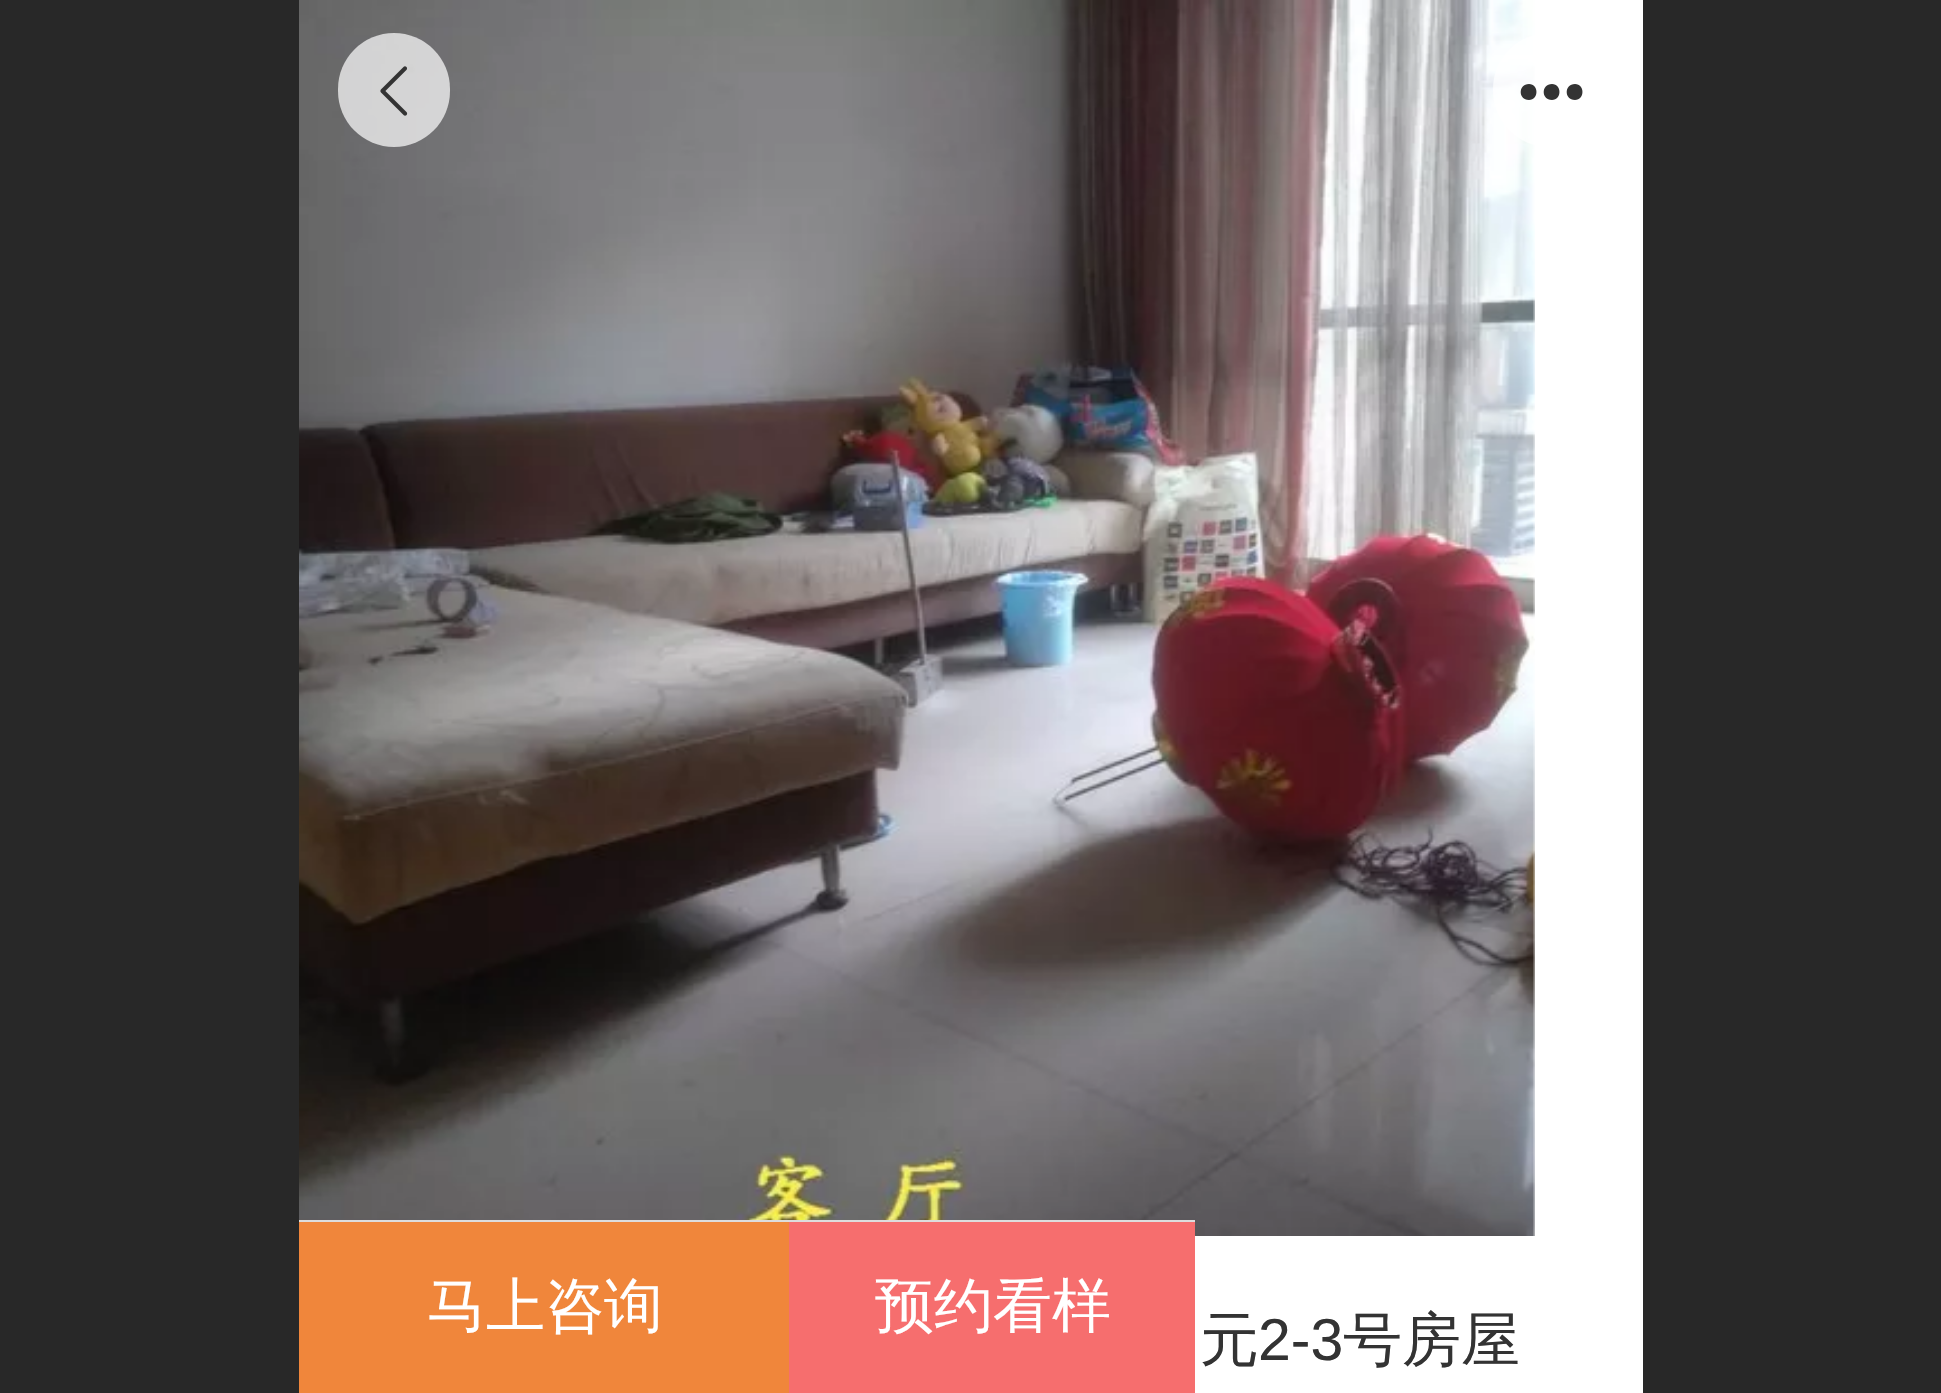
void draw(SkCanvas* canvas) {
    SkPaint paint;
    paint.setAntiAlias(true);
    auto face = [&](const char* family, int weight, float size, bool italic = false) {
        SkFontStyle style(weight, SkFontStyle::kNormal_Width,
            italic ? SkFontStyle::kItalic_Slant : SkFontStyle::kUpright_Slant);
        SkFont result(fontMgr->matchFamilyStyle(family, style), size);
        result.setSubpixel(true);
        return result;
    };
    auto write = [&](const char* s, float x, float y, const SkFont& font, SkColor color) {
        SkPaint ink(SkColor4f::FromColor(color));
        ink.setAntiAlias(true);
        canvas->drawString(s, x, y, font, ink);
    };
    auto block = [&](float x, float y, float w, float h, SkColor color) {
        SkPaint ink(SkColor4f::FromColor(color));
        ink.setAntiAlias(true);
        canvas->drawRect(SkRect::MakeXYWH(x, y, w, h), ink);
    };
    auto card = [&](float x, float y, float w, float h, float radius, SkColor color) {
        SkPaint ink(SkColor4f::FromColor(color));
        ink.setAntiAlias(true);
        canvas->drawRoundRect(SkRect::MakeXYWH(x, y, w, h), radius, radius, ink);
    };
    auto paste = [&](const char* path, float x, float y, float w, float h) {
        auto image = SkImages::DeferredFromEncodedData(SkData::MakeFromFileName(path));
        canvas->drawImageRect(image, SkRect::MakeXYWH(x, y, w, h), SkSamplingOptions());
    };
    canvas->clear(SK_ColorWHITE);
    block(0, 0, 299, 1393, SkColorSetRGB(40, 40, 40));
    paste("pic2.png", 299, 0, 1236, 1236);
    card(338, 33, 112, 114, 56, SkColorSetARGB(179, 255, 255, 255));
    paste("pic1.png", 380, 66, 28, 50);
    card(1493, 33, 112, 114, 56, SkColorSetARGB(179, 255, 255, 255));
    paint.setColor(SkColorSetRGB(51, 51, 51));
    canvas->drawPath(SkPathBuilder().moveTo(1529, 100).cubicTo(1518, 100, 1518, 84, 1529, 84).cubicTo(1539, 84, 1539, 100, 1529, 100).close().moveTo(1552, 100).cubicTo(1541, 100, 1541, 84, 1552, 84).cubicTo(1562, 84, 1562, 100, 1552, 100).close().moveTo(1575, 100).cubicTo(1564, 100, 1564, 84, 1575, 84).cubicTo(1585, 84, 1585, 100, 1575, 100).close().detach(), paint);
    block(299, 1220, 896, 2, SkColorSetRGB(221, 221, 221));
    block(299, 1222, 490, 171, SkColorSetRGB(240, 134, 59));
    auto kFont1 = face("WenQuanYi Zen Hei", 500, 59);
    write("马上咨询", 427, 1326, kFont1, SK_ColorWHITE);
    block(789, 1222, 406, 171, SkColorSetRGB(246, 110, 110));
    write("预约看样", 875, 1326, kFont1, SK_ColorWHITE);
    write("元", 1200, 1360, kFont1, SkColorSetRGB(51, 51, 51));
    auto kFont2 = face("Liberation Sans", 400, 59);
    write("2-3", 1258, 1360, kFont2, SkColorSetRGB(51, 51, 51));
    write("号房屋", 1343, 1360, kFont1, SkColorSetRGB(51, 51, 51));
    block(1643, 0, 298, 1393, SkColorSetRGB(40, 40, 40));
}
